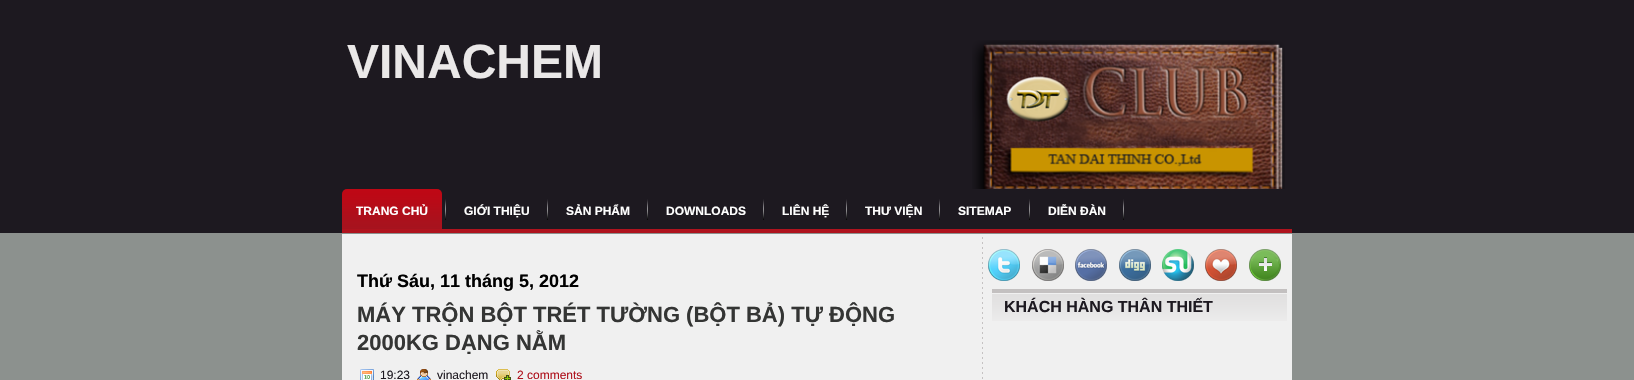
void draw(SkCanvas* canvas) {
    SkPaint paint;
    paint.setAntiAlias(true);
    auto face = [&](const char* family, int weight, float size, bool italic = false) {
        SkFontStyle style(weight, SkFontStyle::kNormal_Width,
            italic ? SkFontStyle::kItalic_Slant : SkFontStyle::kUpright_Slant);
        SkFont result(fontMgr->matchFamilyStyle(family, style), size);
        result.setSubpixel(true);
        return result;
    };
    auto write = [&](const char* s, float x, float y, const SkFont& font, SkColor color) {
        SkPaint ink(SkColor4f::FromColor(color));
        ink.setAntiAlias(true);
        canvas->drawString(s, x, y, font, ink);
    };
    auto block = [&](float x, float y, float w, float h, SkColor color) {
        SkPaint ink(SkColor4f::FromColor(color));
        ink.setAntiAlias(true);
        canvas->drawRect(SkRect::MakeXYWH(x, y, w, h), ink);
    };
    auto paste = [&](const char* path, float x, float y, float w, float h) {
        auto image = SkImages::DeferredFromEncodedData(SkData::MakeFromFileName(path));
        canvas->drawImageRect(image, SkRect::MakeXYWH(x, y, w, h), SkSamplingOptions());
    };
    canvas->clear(SkColorSetRGB(140, 145, 142));
    block(0, 0, 1634, 233, SkColorSetRGB(29, 25, 32));
    auto kFont1 = face("Liberation Sans", 700, 48);
    write("VINACHEM", 347, 78, kFont1, SkColorSetRGB(234, 232, 232));
    paste("pic1.png", 972, 40, 313, 149);
    block(342, 229, 950, 4, SkColorSetRGB(175, 19, 30));
    paste("pic2.png", 445, 199, 1, 21);
    paste("pic3.png", 342, 189, 100, 40);
    auto kFont2 = face("Liberation Sans", 700, 12);
    write("TRANG CHỦ", 356, 215, kFont2, SK_ColorWHITE);
    paste("pic2.png", 547, 199, 1, 21);
    write("GIỚI THIỆU", 464, 215, kFont2, SK_ColorWHITE);
    paste("pic2.png", 647, 199, 1, 21);
    write("SẢN PHẨM", 566, 215, kFont2, SK_ColorWHITE);
    paste("pic2.png", 763, 199, 1, 21);
    write("DOWNLOADS", 666, 215, kFont2, SK_ColorWHITE);
    paste("pic2.png", 846, 199, 1, 21);
    write("LIÊN HỆ", 782, 215, kFont2, SK_ColorWHITE);
    paste("pic2.png", 939, 199, 1, 21);
    write("THƯ VIỆN", 865, 215, kFont2, SK_ColorWHITE);
    paste("pic2.png", 1029, 199, 1, 21);
    write("SITEMAP", 958, 215, kFont2, SK_ColorWHITE);
    paste("pic2.png", 1123, 199, 1, 21);
    write("DIỄN ĐÀN", 1048, 215, kFont2, SK_ColorWHITE);
    block(342, 234, 950, 146, SkColorSetRGB(240, 240, 240));
    paste("pic4.png", 982, 237, 1, 142);
    auto kFont3 = face("Liberation Sans", 700, 18);
    write("Thứ Sáu, 11 tháng 5, 2012", 357, 287, kFont3, SK_ColorBLACK);
    auto kFont4 = face("Liberation Sans", 700, 22);
    write("MÁY TRỘN BỘT TRÉT TƯỜNG (BỘT BẢ) TỰ ĐỘNG", 357, 322, kFont4, SkColorSetRGB(52, 53, 52));
    write("2000KG DẠNG NẰM", 357, 350, kFont4, SkColorSetRGB(52, 53, 52));
    paste("pic5.png", 360, 369, 14, 11);
    auto kFont5 = face("Liberation Sans", 400, 12);
    write("19:23", 380, 379, kFont5, SkColorSetRGB(29, 25, 32));
    paste("pic6.png", 417, 369, 14, 11);
    write("vinachem", 437, 379, kFont5, SkColorSetRGB(29, 25, 32));
    paste("pic7.png", 496, 369, 15, 11);
    write("2 comments", 517, 379, kFont5, SkColorSetRGB(175, 19, 30));
    paste("pic8.png", 988, 249, 32, 32);
    paste("pic9.png", 1032, 249, 32, 32);
    paste("pic10.png", 1075, 249, 32, 32);
    paste("pic11.png", 1119, 249, 32, 32);
    paste("pic12.png", 1162, 249, 32, 32);
    paste("pic13.png", 1205, 249, 32, 32);
    paste("pic14.png", 1249, 249, 32, 32);
    paste("pic15.png", 992, 289, 295, 32);
    auto kFont6 = face("Liberation Sans", 700, 16);
    write("KHÁCH HÀNG THÂN THIẾT", 1004, 312, kFont6, SkColorSetRGB(29, 25, 32));
}
